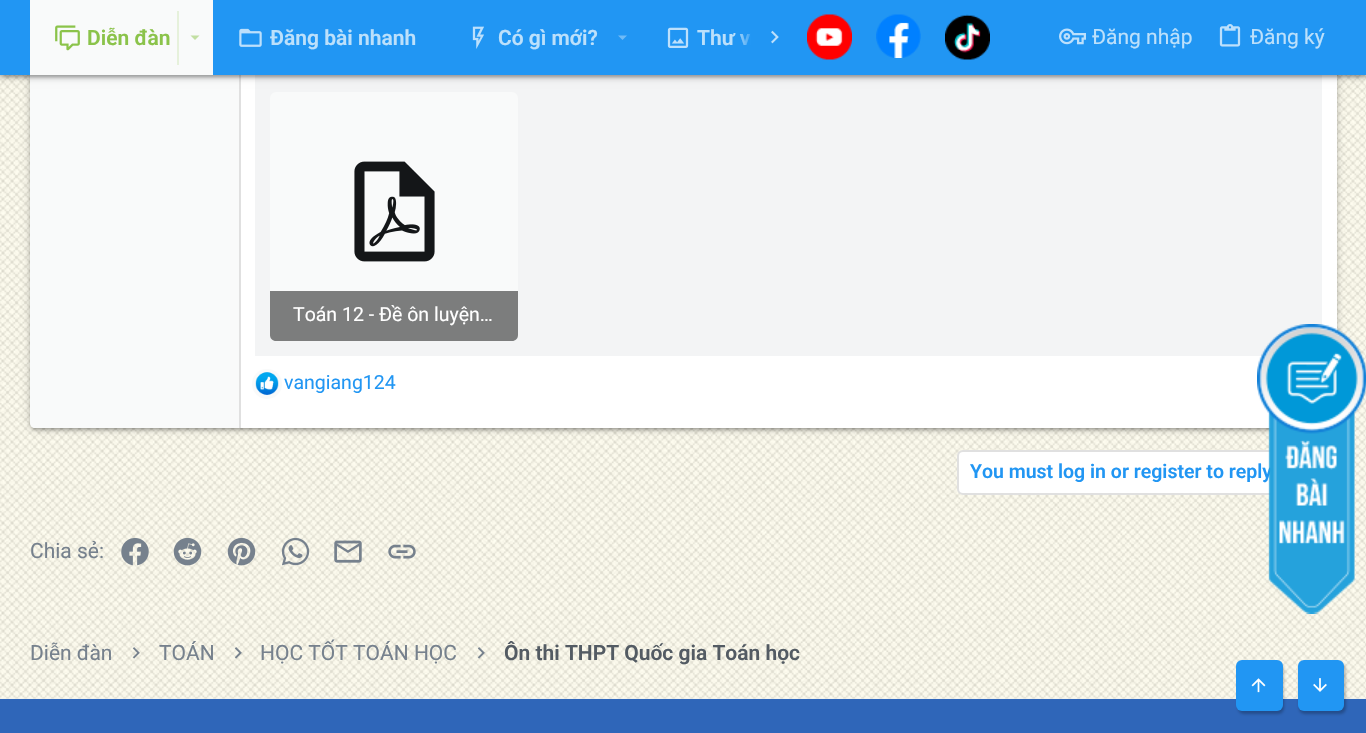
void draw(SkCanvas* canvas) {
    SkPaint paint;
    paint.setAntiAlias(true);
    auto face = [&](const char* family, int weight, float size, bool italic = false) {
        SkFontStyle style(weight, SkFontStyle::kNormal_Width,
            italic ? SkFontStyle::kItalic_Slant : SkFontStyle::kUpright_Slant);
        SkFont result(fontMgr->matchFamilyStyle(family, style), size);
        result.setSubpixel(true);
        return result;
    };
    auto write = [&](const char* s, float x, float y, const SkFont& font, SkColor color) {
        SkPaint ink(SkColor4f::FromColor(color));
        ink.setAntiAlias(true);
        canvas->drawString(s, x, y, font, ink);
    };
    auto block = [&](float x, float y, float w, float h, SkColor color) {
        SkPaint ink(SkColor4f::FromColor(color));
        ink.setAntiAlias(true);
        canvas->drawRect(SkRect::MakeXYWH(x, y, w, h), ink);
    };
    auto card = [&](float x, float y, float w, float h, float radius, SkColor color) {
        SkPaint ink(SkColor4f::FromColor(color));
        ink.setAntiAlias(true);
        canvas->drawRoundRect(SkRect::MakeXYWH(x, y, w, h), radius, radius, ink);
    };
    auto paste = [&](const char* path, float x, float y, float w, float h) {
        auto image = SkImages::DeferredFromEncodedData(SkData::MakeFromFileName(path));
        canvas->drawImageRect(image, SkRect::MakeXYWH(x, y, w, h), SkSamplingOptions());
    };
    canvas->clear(SkColorSetRGB(236, 239, 241));
    paste("pic11.png", 0, 75, 1366, 624);
    paint.setColor(SkColorSetARGB(51, 0, 0, 0));
    paint.setMaskFilter(SkMaskFilter::MakeBlur(kNormal_SkBlurStyle, 4));
    canvas->drawRoundRect(SkRect::MakeXYWH(30, -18, 1307, 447), 6, 6, paint);
    paint.setMaskFilter(nullptr);
    paint.setColor(SkColorSetARGB(31, 0, 0, 0));
    paint.setMaskFilter(SkMaskFilter::MakeBlur(kNormal_SkBlurStyle, 1));
    canvas->drawRoundRect(SkRect::MakeXYWH(33, -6, 1301, 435), 3, 3, paint);
    paint.setMaskFilter(nullptr);
    paint.setColor(SkColorSetARGB(36, 0, 0, 0));
    paint.setMaskFilter(SkMaskFilter::MakeBlur(kNormal_SkBlurStyle, 1.5f));
    canvas->drawRoundRect(SkRect::MakeXYWH(30, -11, 1307, 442), 6, 6, paint);
    paint.setMaskFilter(nullptr);
    card(30, -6, 1307, 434, 6, SK_ColorWHITE);
    paint.setColor(SkColorSetRGB(249, 250, 250));
    canvas->drawPath(SkPathBuilder().moveTo(35, -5).lineTo(240, -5).lineTo(240, 428).lineTo(35, 428).cubicTo(32, 428, 30, 426, 30, 423).lineTo(30, 0).cubicTo(30, -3, 32, -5, 35, -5).close().detach(), paint);
    block(239, 75, 2, 353, SkColorSetRGB(224, 224, 224));
    block(255, 75, 1067, 281, SkColorSetRGB(243, 244, 245));
    paint.setColor(SkColorSetARGB(51, 0, 0, 0));
    paint.setMaskFilter(SkMaskFilter::MakeBlur(kNormal_SkBlurStyle, 4));
    canvas->drawRect(SkRect::MakeXYWH(0, 2, 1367, 75), paint);
    paint.setMaskFilter(nullptr);
    paint.setColor(SkColorSetARGB(31, 0, 0, 0));
    paint.setMaskFilter(SkMaskFilter::MakeBlur(kNormal_SkBlurStyle, 1));
    canvas->drawRect(SkRect::MakeXYWH(3, 8, 1361, 69), paint);
    paint.setMaskFilter(nullptr);
    paint.setColor(SkColorSetARGB(36, 0, 0, 0));
    paint.setMaskFilter(SkMaskFilter::MakeBlur(kNormal_SkBlurStyle, 1.5f));
    canvas->drawRect(SkRect::MakeXYWH(0, 3, 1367, 75), paint);
    paint.setMaskFilter(nullptr);
    block(0, 0, 1366, 75, SkColorSetRGB(33, 150, 243));
    block(30, 0, 183, 75, SkColorSetRGB(249, 250, 250));
    paste("pic1.png", 55, 25, 25, 26);
    auto kFont1 = face("Roboto", 600, 21);
    write("Diễn đàn", 87, 45, kFont1, SkColorSetRGB(139, 195, 74));
    block(177, 11, 2, 54, SkColorSetRGB(230, 241, 219));
    paint.setColor(SkColorSetRGB(194, 223, 162));
    canvas->drawPath(SkPathBuilder().moveTo(190.5f, 35.5f).lineTo(195, 40).lineTo(199.5f, 35.5f).close().detach(), paint);
    paste("pic2.png", 239, 28, 23, 19);
    write("Đăng bài nhanh", 270, 45, kFont1, SkColorSetRGB(188, 224, 251));
    paste("pic3.png", 472, 26, 12, 23);
    write("Có gì mới?", 498, 45, kFont1, SkColorSetRGB(188, 224, 251));
    paint.setColor(SkColorSetRGB(111, 187, 247));
    canvas->drawPath(SkPathBuilder().moveTo(618, 35.5f).lineTo(622.5f, 40).lineTo(627, 35.5f).close().detach(), paint);
    paste("pic4.png", 667, 27, 22, 21);
    write("Thư v", 697, 45, kFont1, SkColorSetRGB(188, 224, 251));
    {
        const SkColor colors[] = {SkColorSetARGB(0, 33, 150, 243), SkColorSetRGB(33, 150, 243)};
        const float stops[] = {0, 0.33f};
        const SkPoint ends[] = {{735, 38}, {795, 38}};
        paint.setShader(SkGradientShader::MakeLinear(ends, colors, stops, 2, SkTileMode::kClamp));
        paint.setAlpha(255);
    }
    canvas->drawRect(SkRect::MakeXYWH(740, 33, 11, 12), paint);
    paste("pic5.png", 771, 30, 8, 14);
    paste("pic6.png", 807, 14, 45, 46);
    paste("pic7.png", 876, 14, 45, 44);
    paste("pic8.png", 945, 14, 45, 46);
    paste("pic9.png", 1059, 28, 27, 17);
    auto kFont2 = face("Roboto", 400, 21);
    write("Đăng nhập", 1092, 44, kFont2, SkColorSetRGB(188, 224, 251));
    paste("pic10.png", 1219, 24, 22, 23);
    write("Đăng ký", 1250, 44, kFont2, SkColorSetRGB(188, 224, 251));
    card(270, 92, 248, 249, 6, SkColorSetRGB(249, 250, 250));
    paste("pic12.png", 354, 161, 81, 101);
    paint.setShader(nullptr);
    paint.setColor(SkColorSetRGB(124, 125, 125));
    canvas->drawPath(SkPathBuilder().moveTo(270, 291).lineTo(518, 291).lineTo(518, 335).cubicTo(518, 338.5f, 515.5f, 341, 512, 341).lineTo(276, 341).cubicTo(272.5f, 341, 270, 338.5f, 270, 335).close().detach(), paint);
    auto kFont3 = face("Roboto", 400, 19.5f);
    write("Toán 12 - Đề ôn luyện…", 293, 321, kFont3, SK_ColorWHITE);
    paint.setColor(SkColorSetRGB(249, 250, 250));
    canvas->drawCircle(267, 384, 15, paint);
    paste("pic13.png", 255, 372, 24, 23);
    write("vangiang124", 284, 389, kFont3, SkColorSetRGB(33, 150, 243));
    paint.setColor(SK_ColorWHITE);
    canvas->drawRoundRect(SkRect::MakeXYWH(958, 451, 378, 43), 5, 5, paint);
    paint.setStyle(SkPaint::kStroke_Style);
    paint.setStrokeWidth(2);
    paint.setColor(SkColorSetRGB(224, 224, 224));
    canvas->drawRoundRect(SkRect::MakeXYWH(958, 451, 378, 43), 5, 5, paint);
    auto kFont4 = face("Roboto", 600, 19.5f);
    write("You must log in or register to reply", 970, 478, kFont4, SkColorSetRGB(33, 150, 243));
    write("Chia sẻ:", 30, 558, kFont2, SkColorSetRGB(118, 129, 141));
    paste("pic14.png", 121, 538, 28, 28);
    paste("pic15.png", 173, 537, 29, 29);
    paste("pic16.png", 227, 537, 29, 29);
    paste("pic17.png", 281, 537, 29, 29);
    paste("pic18.png", 334, 540, 28, 23);
    paste("pic19.png", 388, 544, 28, 15);
    write("Diễn đàn", 30, 660, kFont2, SkColorSetRGB(118, 129, 141));
    paste("pic20.png", 132, 647, 8, 12);
    write("TOÁN", 159, 660, kFont2, SkColorSetRGB(118, 129, 141));
    paste("pic21.png", 234, 647, 8, 12);
    write("HỌC TỐT TOÁN HỌC", 260, 660, kFont2, SkColorSetRGB(118, 129, 141));
    paste("pic22.png", 477, 647, 8, 12);
    write("Ôn thi THPT Quốc gia Toán học", 504, 660, kFont1, SkColorSetRGB(83, 91, 99));
    block(0, 699, 1366, 34, SkColorSetRGB(47, 102, 185));
    paste("pic23.png", 1257, 324, 109, 290);
    paint.setStyle(SkPaint::kFill_Style);
    paint.setColor(SkColorSetARGB(64, 0, 0, 0));
    paint.setMaskFilter(SkMaskFilter::MakeBlur(kNormal_SkBlurStyle, 1.5f));
    canvas->drawRoundRect(SkRect::MakeXYWH(1238, 663, 46, 51), 6, 6, paint);
    paint.setMaskFilter(nullptr);
    card(1236, 660, 47, 51, 6, SkColorSetRGB(33, 150, 243));
    paste("pic24.png", 1251, 678, 15, 15);
    paint.setMaskFilter(SkMaskFilter::MakeBlur(kNormal_SkBlurStyle, 1.5f));
    canvas->drawRoundRect(SkRect::MakeXYWH(1299, 663, 47, 51), 6, 6, paint);
    paint.setMaskFilter(nullptr);
    card(1298, 660, 46, 51, 6, SkColorSetRGB(33, 150, 243));
    paste("pic25.png", 1313, 678, 14, 14);
}
